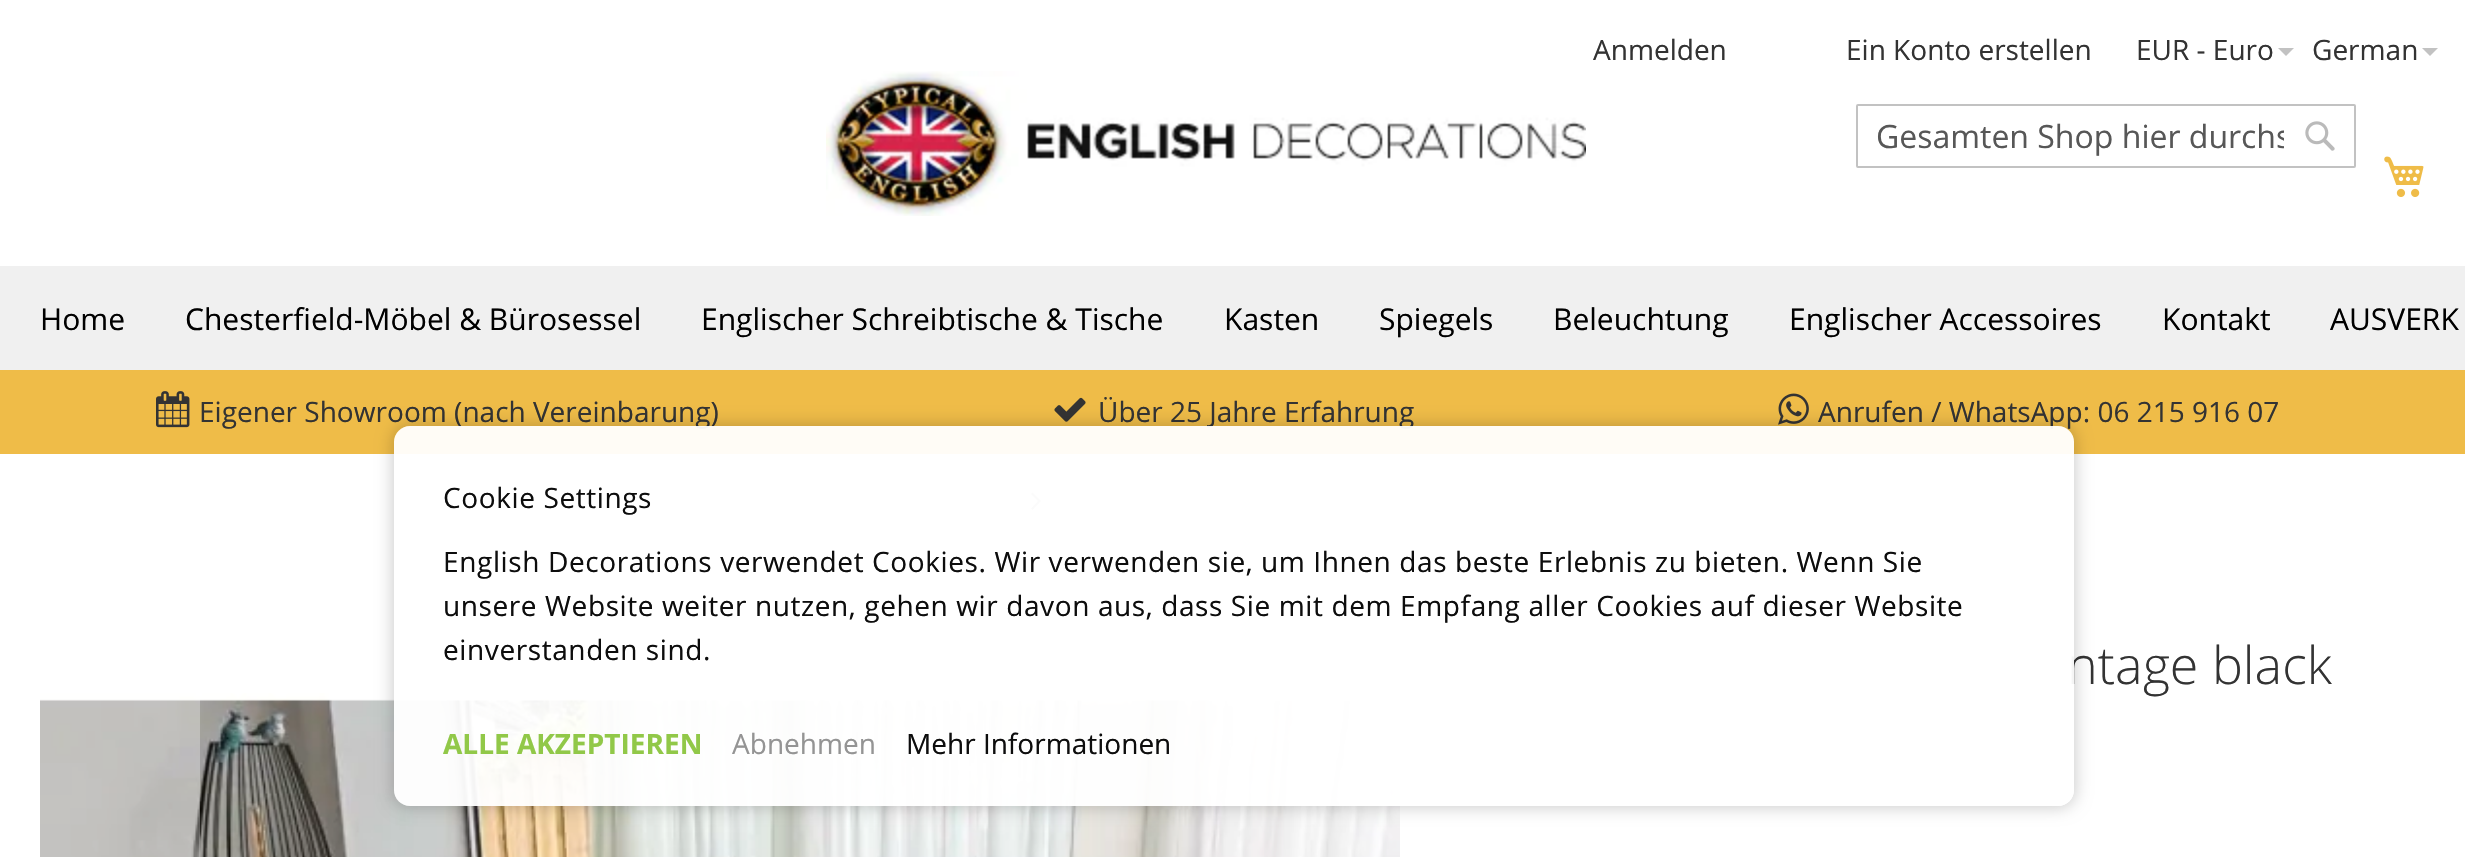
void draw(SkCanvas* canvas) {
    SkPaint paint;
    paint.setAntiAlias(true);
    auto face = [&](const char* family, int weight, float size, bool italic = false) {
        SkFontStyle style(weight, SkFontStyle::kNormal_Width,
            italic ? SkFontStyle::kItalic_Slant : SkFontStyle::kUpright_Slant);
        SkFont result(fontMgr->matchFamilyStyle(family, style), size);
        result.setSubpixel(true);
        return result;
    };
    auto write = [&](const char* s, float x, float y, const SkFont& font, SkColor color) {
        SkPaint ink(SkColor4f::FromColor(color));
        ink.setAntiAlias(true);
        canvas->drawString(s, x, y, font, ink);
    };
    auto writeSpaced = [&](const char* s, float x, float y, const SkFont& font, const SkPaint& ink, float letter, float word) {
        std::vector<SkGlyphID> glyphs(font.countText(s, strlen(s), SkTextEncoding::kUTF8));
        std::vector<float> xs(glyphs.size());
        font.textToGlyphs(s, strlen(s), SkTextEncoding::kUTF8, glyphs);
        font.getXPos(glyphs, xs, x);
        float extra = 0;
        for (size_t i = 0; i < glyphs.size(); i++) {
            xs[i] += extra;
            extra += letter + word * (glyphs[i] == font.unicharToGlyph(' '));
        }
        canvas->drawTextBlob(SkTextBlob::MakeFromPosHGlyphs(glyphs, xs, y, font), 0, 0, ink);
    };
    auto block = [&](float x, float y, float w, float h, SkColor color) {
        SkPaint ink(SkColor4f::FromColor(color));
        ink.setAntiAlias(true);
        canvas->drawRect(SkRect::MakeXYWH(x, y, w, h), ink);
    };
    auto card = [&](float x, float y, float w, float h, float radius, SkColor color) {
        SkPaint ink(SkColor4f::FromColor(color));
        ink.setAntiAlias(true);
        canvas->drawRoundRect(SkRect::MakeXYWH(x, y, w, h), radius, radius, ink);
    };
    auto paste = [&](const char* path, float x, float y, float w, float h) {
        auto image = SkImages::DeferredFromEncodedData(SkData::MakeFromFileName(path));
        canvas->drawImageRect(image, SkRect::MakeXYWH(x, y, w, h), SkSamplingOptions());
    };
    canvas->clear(SK_ColorWHITE);
    auto kFont1 = face("Open Sans", 400, 28);
    write("Anmelden", 1593, 60, kFont1, SkColorSetRGB(51, 51, 51));
    write("Ein Konto erstellen", 1846, 60, kFont1, SkColorSetRGB(51, 51, 51));
    write("EUR - Euro", 2136, 60, kFont1, SkColorSetRGB(51, 51, 51));
    paint.setColor(SkColorSetRGB(194, 194, 194));
    canvas->drawPath(SkPathBuilder().moveTo(2278, 48).lineTo(2294, 48).lineTo(2286, 56).close().detach(), paint);
    write("German", 2312, 60, kFont1, SkColorSetRGB(51, 51, 51));
    canvas->drawPath(SkPathBuilder().moveTo(2422, 48).lineTo(2438, 48).lineTo(2430, 56).close().detach(), paint);
    paste("pic1.png", 826, 71, 760, 145);
    paint.setStyle(SkPaint::kStroke_Style);
    paint.setStrokeWidth(2);
    canvas->drawRoundRect(SkRect::MakeXYWH(1857, 105, 498, 62), 1, 1, paint);
    canvas->save();
    canvas->clipRect(SkRect::MakeXYWH(1876, 114, 408, 44));
    auto kFont2 = face("Open Sans", 400, 32);
    write("Gesamten Shop hier durchs", 1876, 148, kFont2, SkColorSetRGB(87, 87, 87));
    canvas->restore();
    paste("pic2.png", 2305, 121, 30, 30);
    paste("pic3.png", 2384, 156, 40, 41);
    block(0, 266, 2465, 104, SkColorSetRGB(240, 240, 240));
    auto kFont3 = face("Open Sans", 400, 30);
    write("Home", 40, 330, kFont3, SK_ColorBLACK);
    write("Chesterfield-Möbel & Bürosessel", 185, 330, kFont3, SK_ColorBLACK);
    write("Englischer Schreibtische & Tische", 701, 330, kFont3, SK_ColorBLACK);
    write("Kasten", 1224, 330, kFont3, SK_ColorBLACK);
    write("Spiegels", 1379, 330, kFont3, SK_ColorBLACK);
    write("Beleuchtung", 1553, 330, kFont3, SK_ColorBLACK);
    write("Englischer Accessoires", 1789, 330, kFont3, SK_ColorBLACK);
    write("Kontakt", 2162, 330, kFont3, SK_ColorBLACK);
    write("AUSVERK", 2330, 330, kFont3, SK_ColorBLACK);
    block(0, 370, 2465, 84, SkColorSetRGB(239, 188, 72));
    paste("pic4.png", 156, 391, 34, 37);
    write("Eigener Showroom (nach Vereinbarung)", 199, 422, kFont1, SkColorSetRGB(51, 51, 51));
    paste("pic5.png", 1054, 397, 32, 25);
    write("Über 25 Jahre Erfahrung", 1098, 422, kFont1, SkColorSetRGB(51, 51, 51));
    paste("pic6.png", 1778, 393, 31, 32);
    write("Anrufen / WhatsApp: 06 215 916 07", 1818, 422, kFont1, SkColorSetRGB(51, 51, 51));
    paint.setStyle(SkPaint::kFill_Style);
    paint.setColor(SkColorSetRGB(163, 163, 163));
    canvas->drawPath(SkPathBuilder().moveTo(1041, 501).lineTo(1032.5f, 492.5f).lineTo(1031, 494).lineTo(1038, 501).lineTo(1031, 508.5f).lineTo(1032.5f, 510).close().detach(), paint);
    auto kFont4 = face("Open Sans", 300, 52);
    write("ntage black", 2067, 684, kFont4, SkColorSetRGB(51, 51, 51));
    paste("pic7.png", 40, 693, 1360, 164);
    block(40, 699, 160, 158, SkColorSetARGB(77, 255, 255, 255));
    block(1240, 699, 160, 158, SkColorSetARGB(77, 255, 255, 255));
    canvas->save();
    canvas->clipPath(SkPathBuilder(SkPathFillType::kEvenOdd).moveTo(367, 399).lineTo(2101, 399).lineTo(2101, 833).lineTo(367, 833).close().moveTo(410, 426).lineTo(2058, 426).cubicTo(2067, 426, 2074, 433, 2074, 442).lineTo(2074, 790).cubicTo(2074, 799, 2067, 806, 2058, 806).lineTo(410, 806).cubicTo(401, 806, 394, 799, 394, 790).lineTo(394, 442).cubicTo(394, 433, 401, 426, 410, 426).close().detach(), true);
    paint.setColor(SkColorSetARGB(48, 0, 0, 0));
    paint.setMaskFilter(SkMaskFilter::MakeBlur(kNormal_SkBlurStyle, 8));
    canvas->drawRoundRect(SkRect::MakeXYWH(392, 424, 1684, 384), 18, 18, paint);
    paint.setMaskFilter(nullptr);
    canvas->restore();
    card(394, 426, 1680, 380, 16, SkColorSetARGB(242, 255, 255, 255));
    paint.setColor(SkColorSetRGB(13, 13, 13));
    writeSpaced("Cookie Settings", 443, 508, kFont1, paint, 0.6f, 0);
    writeSpaced("English Decorations verwendet Cookies. Wir verwenden sie, um Ihnen das beste Erlebnis zu bieten. Wenn Sie", 443, 572, kFont1, paint, 0.6f, 0);
    writeSpaced("unsere Website weiter nutzen, gehen wir davon aus, dass Sie mit dem Empfang aller Cookies auf dieser Website", 443, 616, kFont1, paint, 0.6f, 0);
    writeSpaced("einverstanden sind.", 443, 660, kFont1, paint, 0.6f, 0);
    auto kFont5 = face("Open Sans", 700, 28);
    write("ALLE AKZEPTIEREN", 443, 754, kFont5, SkColorSetRGB(145, 200, 72));
    write("Abnehmen", 732, 754, kFont1, SkColorSetRGB(148, 148, 148));
    write("Mehr Informationen", 906, 754, kFont1, SkColorSetRGB(13, 13, 13));
}
